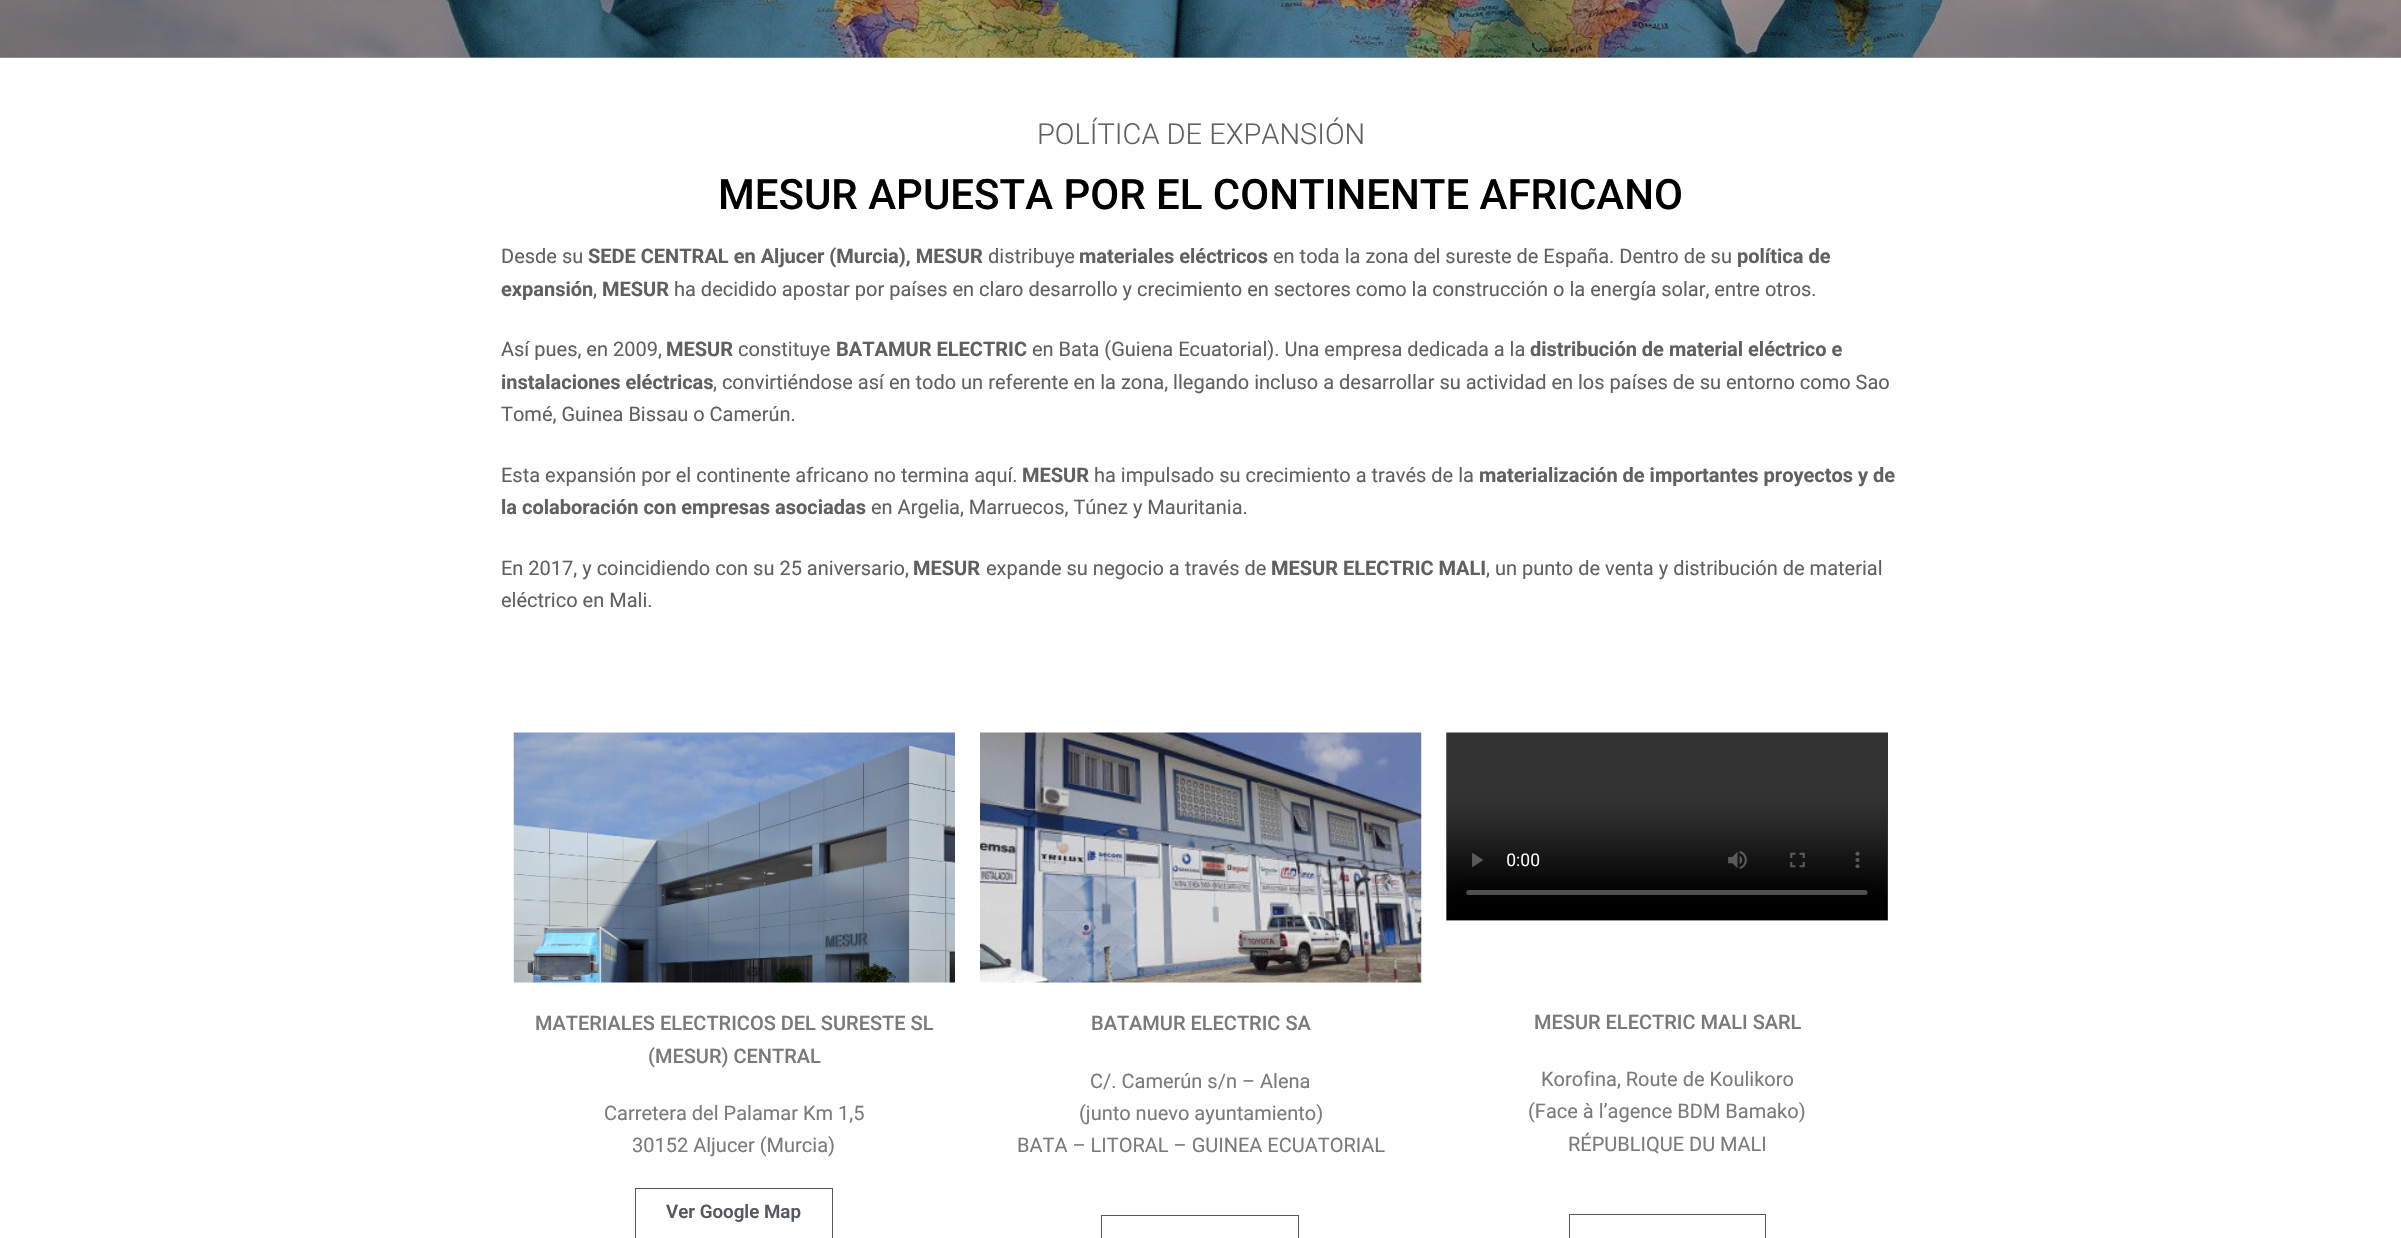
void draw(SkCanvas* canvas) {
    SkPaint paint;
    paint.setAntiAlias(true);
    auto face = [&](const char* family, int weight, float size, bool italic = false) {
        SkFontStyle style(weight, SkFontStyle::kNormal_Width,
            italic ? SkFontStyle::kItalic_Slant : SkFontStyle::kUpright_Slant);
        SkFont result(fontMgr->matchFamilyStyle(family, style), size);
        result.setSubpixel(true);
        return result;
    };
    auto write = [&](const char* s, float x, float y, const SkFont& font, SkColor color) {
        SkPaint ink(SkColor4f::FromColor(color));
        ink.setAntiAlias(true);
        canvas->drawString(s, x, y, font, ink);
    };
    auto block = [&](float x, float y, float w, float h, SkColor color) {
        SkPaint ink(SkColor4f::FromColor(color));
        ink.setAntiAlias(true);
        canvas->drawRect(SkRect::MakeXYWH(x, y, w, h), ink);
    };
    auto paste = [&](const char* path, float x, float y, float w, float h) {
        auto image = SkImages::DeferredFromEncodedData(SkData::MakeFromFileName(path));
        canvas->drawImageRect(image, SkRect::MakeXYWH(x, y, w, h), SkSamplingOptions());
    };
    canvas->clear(SK_ColorWHITE);
    block(0, 57, 2401, 1, SkColorSetRGB(175, 175, 175));
    paste("pic1.png", 0, 0, 2401, 58);
    auto kFont1 = face("Roboto", 300, 29);
    write("POLÍTICA DE EXPANSIÓN", 1037, 144, kFont1, SkColorSetRGB(98, 95, 96));
    auto kFont2 = face("Roboto", 500, 42);
    write("MESUR APUESTA POR EL CONTINENTE AFRICANO", 718, 209, kFont2, SK_ColorBLACK);
    auto kFont3 = face("Roboto", 400, 20);
    write("Desde su", 501, 263, kFont3, SkColorSetRGB(98, 95, 96));
    auto kFont4 = face("Roboto", 700, 20);
    write("SEDE CENTRAL en Aljucer (Murcia), MESUR", 588, 263, kFont4, SkColorSetRGB(98, 95, 96));
    write("distribuye", 988, 263, kFont3, SkColorSetRGB(98, 95, 96));
    write("materiales eléctricos", 1079, 263, kFont4, SkColorSetRGB(98, 95, 96));
    write("en toda la zona del sureste de España. Dentro de su", 1273, 263, kFont3, SkColorSetRGB(98, 95, 96));
    write("política de", 1737, 263, kFont4, SkColorSetRGB(98, 95, 96));
    write("expansión", 501, 296, kFont4, SkColorSetRGB(98, 95, 96));
    write(",", 593, 296, kFont3, SkColorSetRGB(98, 95, 96));
    write("MESUR", 602, 296, kFont4, SkColorSetRGB(98, 95, 96));
    write("ha decidido apostar por países en claro desarrollo y crecimiento en sectores como la construcción o la energía solar, entre otros.", 674, 296, kFont3, SkColorSetRGB(98, 95, 96));
    write("Así pues, en 2009,", 501, 356, kFont3, SkColorSetRGB(98, 95, 96));
    write("MESUR", 666, 356, kFont4, SkColorSetRGB(98, 95, 96));
    write("constituye", 738, 356, kFont3, SkColorSetRGB(98, 95, 96));
    write("BATAMUR ELECTRIC", 836, 356, kFont4, SkColorSetRGB(98, 95, 96));
    write("en Bata (Guiena Ecuatorial). Una empresa dedicada a la", 1032, 356, kFont3, SkColorSetRGB(98, 95, 96));
    write("distribución de material eléctrico e", 1530, 356, kFont4, SkColorSetRGB(98, 95, 96));
    write("instalaciones eléctricas", 501, 389, kFont4, SkColorSetRGB(98, 95, 96));
    write(", convirtiéndose así en todo un referente en la zona, llegando incluso a desarrollar su actividad en los países de su entorno como Sao", 713, 389, kFont3, SkColorSetRGB(98, 95, 96));
    write("Tomé, Guinea Bissau o Camerún.", 501, 421, kFont3, SkColorSetRGB(98, 95, 96));
    write("Esta expansión por el continente africano no termina aquí.", 501, 482, kFont3, SkColorSetRGB(98, 95, 96));
    write("MESUR", 1022, 482, kFont4, SkColorSetRGB(98, 95, 96));
    write("ha impulsado su crecimiento a través de la", 1094, 482, kFont3, SkColorSetRGB(98, 95, 96));
    write("materialización de importantes proyectos y de", 1479, 482, kFont4, SkColorSetRGB(98, 95, 96));
    write("la colaboración con empresas asociadas", 501, 514, kFont4, SkColorSetRGB(98, 95, 96));
    write("en Argelia, Marruecos, Túnez y Mauritania.", 871, 514, kFont3, SkColorSetRGB(98, 95, 96));
    write("En 2017, y coincidiendo con su 25 aniversario,", 501, 575, kFont3, SkColorSetRGB(98, 95, 96));
    write("MESUR", 913, 575, kFont4, SkColorSetRGB(98, 95, 96));
    write("expande su negocio a través de", 986, 575, kFont3, SkColorSetRGB(98, 95, 96));
    write("MESUR ELECTRIC MALI", 1271, 575, kFont4, SkColorSetRGB(98, 95, 96));
    write(", un punto de venta y distribución de material", 1486, 575, kFont3, SkColorSetRGB(98, 95, 96));
    write("eléctrico en Mali.", 501, 607, kFont3, SkColorSetRGB(98, 95, 96));
    paste("pic2.png", 513, 732, 442, 251);
    auto kFont5 = face("Roboto", 500, 20);
    write("MATERIALES ELECTRICOS DEL SURESTE SL", 535, 1030, kFont5, SkColorSetRGB(122, 122, 122));
    write("(MESUR) CENTRAL", 648, 1063, kFont5, SkColorSetRGB(122, 122, 122));
    write("Carretera del Palamar Km 1,5", 604, 1120, kFont3, SkColorSetRGB(122, 122, 122));
    write("30152 Aljucer (Murcia)", 632, 1152, kFont3, SkColorSetRGB(122, 122, 122));
    paint.setStyle(SkPaint::kStroke_Style);
    paint.setStrokeWidth(1);
    paint.setColor(SkColorSetRGB(84, 89, 95));
    canvas->drawRect(SkRect::MakeXYWH(635.5f, 1188.5f, 197, 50), paint);
    auto kFont6 = face("Roboto", 600, 18.75f);
    write("Ver Google Map", 666, 1218, kFont6, SkColorSetRGB(84, 89, 95));
    paste("pic3.png", 980, 732, 442, 251);
    write("BATAMUR ELECTRIC SA", 1091, 1030, kFont5, SkColorSetRGB(122, 122, 122));
    write("C/. Camerún s/n – Alena", 1090, 1088, kFont3, SkColorSetRGB(122, 122, 122));
    write("(junto nuevo ayuntamiento)", 1079, 1120, kFont3, SkColorSetRGB(122, 122, 122));
    write("BATA – LITORAL – GUINEA ECUATORIAL", 1017, 1152, kFont3, SkColorSetRGB(122, 122, 122));
    canvas->drawRect(SkRect::MakeXYWH(1101.5f, 1215.5f, 197, 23), paint);
    paste("pic4.png", 1446, 732, 442, 189);
    write("MESUR ELECTRIC MALI SARL", 1534, 1029, kFont5, SkColorSetRGB(122, 122, 122));
    write("Korofina, Route de Koulikoro", 1541, 1086, kFont3, SkColorSetRGB(122, 122, 122));
    write("(Face à l’agence BDM Bamako)", 1528, 1118, kFont3, SkColorSetRGB(122, 122, 122));
    write("RÉPUBLIQUE DU MALI", 1568, 1151, kFont3, SkColorSetRGB(122, 122, 122));
    canvas->drawRect(SkRect::MakeXYWH(1569.5f, 1214.5f, 196, 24), paint);
}
